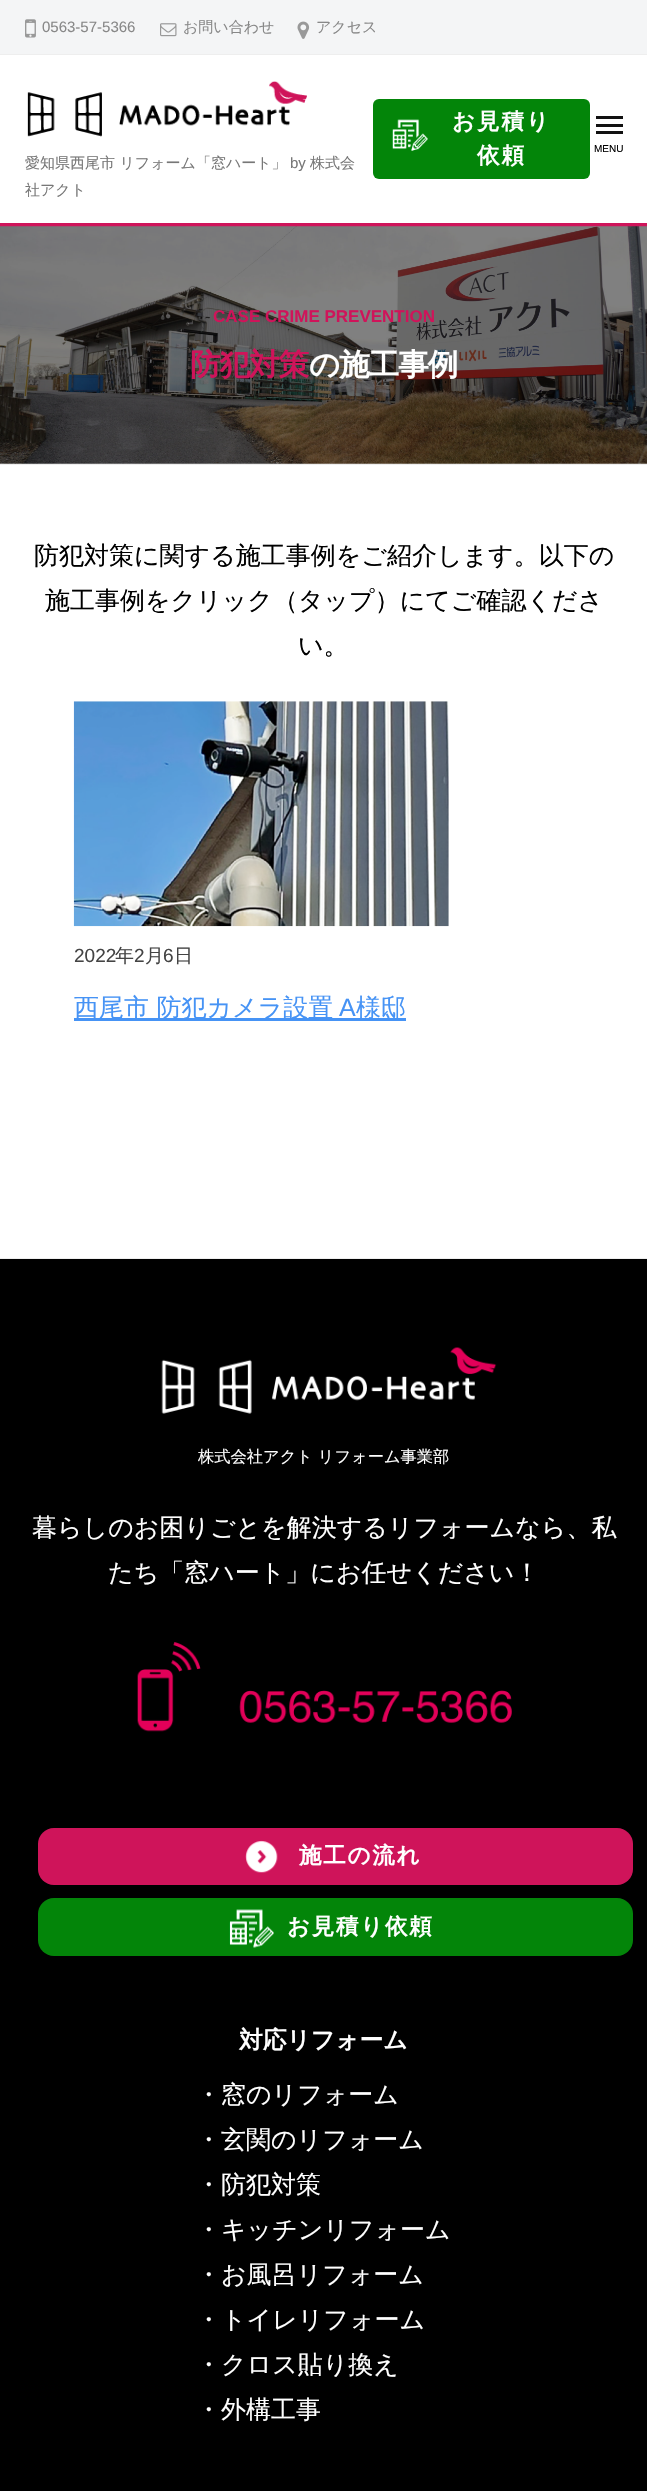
void draw(SkCanvas* canvas) {
    SkPaint paint;
    paint.setAntiAlias(true);
    auto face = [&](const char* family, int weight, float size, bool italic = false) {
        SkFontStyle style(weight, SkFontStyle::kNormal_Width,
            italic ? SkFontStyle::kItalic_Slant : SkFontStyle::kUpright_Slant);
        SkFont result(fontMgr->matchFamilyStyle(family, style), size);
        result.setSubpixel(true);
        return result;
    };
    auto write = [&](const char* s, float x, float y, const SkFont& font, SkColor color) {
        SkPaint ink(SkColor4f::FromColor(color));
        ink.setAntiAlias(true);
        canvas->drawString(s, x, y, font, ink);
    };
    auto writeSpaced = [&](const char* s, float x, float y, const SkFont& font, const SkPaint& ink, float letter, float word) {
        std::vector<SkGlyphID> glyphs(font.countText(s, strlen(s), SkTextEncoding::kUTF8));
        std::vector<float> xs(glyphs.size());
        font.textToGlyphs(s, strlen(s), SkTextEncoding::kUTF8, glyphs);
        font.getXPos(glyphs, xs, x);
        float extra = 0;
        for (size_t i = 0; i < glyphs.size(); i++) {
            xs[i] += extra;
            extra += letter + word * (glyphs[i] == font.unicharToGlyph(' '));
        }
        canvas->drawTextBlob(SkTextBlob::MakeFromPosHGlyphs(glyphs, xs, y, font), 0, 0, ink);
    };
    auto block = [&](float x, float y, float w, float h, SkColor color) {
        SkPaint ink(SkColor4f::FromColor(color));
        ink.setAntiAlias(true);
        canvas->drawRect(SkRect::MakeXYWH(x, y, w, h), ink);
    };
    auto card = [&](float x, float y, float w, float h, float radius, SkColor color) {
        SkPaint ink(SkColor4f::FromColor(color));
        ink.setAntiAlias(true);
        canvas->drawRoundRect(SkRect::MakeXYWH(x, y, w, h), radius, radius, ink);
    };
    auto paste = [&](const char* path, float x, float y, float w, float h) {
        auto image = SkImages::DeferredFromEncodedData(SkData::MakeFromFileName(path));
        canvas->drawImageRect(image, SkRect::MakeXYWH(x, y, w, h), SkSamplingOptions());
    };
    canvas->clear(SK_ColorWHITE);
    block(0, 464, 647, 1, SkColorSetRGB(238, 238, 238));
    block(0, 0, 647, 54, SkColorSetRGB(244, 245, 246));
    block(0, 54, 647, 1, SkColorSetRGB(238, 238, 238));
    paste("pic1.png", 25, 19, 11, 19);
    auto kFont1 = face("Liberation Sans", 400, 15);
    write("0563-57-5366", 42, 32, kFont1, SkColorSetRGB(136, 136, 136));
    paste("pic2.png", 160, 23, 17, 14);
    auto kFont2 = face("WenQuanYi Zen Hei", 500, 15);
    write("お問い合わせ", 183, 32, kFont2, SkColorSetRGB(136, 136, 136));
    paste("pic3.png", 297, 21, 13, 18);
    write("アクセス", 316, 32, kFont2, SkColorSetRGB(136, 136, 136));
    block(0, 223, 647, 4, SkColorSetRGB(207, 20, 90));
    card(373, 99, 217, 80, 6, SkColorSetRGB(3, 133, 9));
    paste("pic4.png", 392, 119, 36, 32);
    auto kFont3 = face("WenQuanYi Zen Hei", 700, 22.5f);
    paint.setColor(SK_ColorWHITE);
    writeSpaced("お見積り", 452, 129, kFont3, paint, 2, 0);
    writeSpaced("依頼", 477, 163, kFont3, paint, 2, 0);
    block(596, 124, 27, 3, SkColorSetRGB(17, 17, 17));
    block(596, 116, 27, 3, SkColorSetRGB(17, 17, 17));
    block(596, 131, 27, 3, SkColorSetRGB(17, 17, 17));
    auto kFont4 = face("Liberation Sans", 400, 10);
    write("MENU", 594, 152, kFont4, SK_ColorBLACK);
    paste("pic5.png", 27, 81, 280, 56);
    write("愛知県西尾市 リフォーム「窓ハート」", 25, 168, kFont2, SkColorSetRGB(119, 119, 119));
    write("by", 290, 168, kFont1, SkColorSetRGB(119, 119, 119));
    write("株式会", 310, 168, kFont2, SkColorSetRGB(119, 119, 119));
    write("社アクト", 25, 195, kFont2, SkColorSetRGB(119, 119, 119));
    paste("pic6.png", 0, 226, 647, 238);
    auto kFont5 = face("Liberation Sans", 700, 17);
    write("CASE CRIME PREVENTION", 213, 322, kFont5, SkColorSetRGB(207, 20, 90));
    auto kFont6 = face("WenQuanYi Zen Hei", 700, 30.5f);
    paint.setColor(SkColorSetRGB(207, 20, 90));
    writeSpaced("防犯対策", 190, 375, kFont6, paint, -1, 0);
    paint.setColor(SK_ColorWHITE);
    writeSpaced("の施工事例", 309, 375, kFont6, paint, -1, 0);
    auto kFont7 = face("WenQuanYi Zen Hei", 500, 25);
    write("防犯対策に関する施工事例をご紹介します。以下の", 34, 564, kFont7, SK_ColorBLACK);
    write("施工事例をクリック（タップ）にてご確認くださ", 45, 609, kFont7, SK_ColorBLACK);
    write("い。", 298, 654, kFont7, SK_ColorBLACK);
    paste("pic7.png", 73, 701, 376, 226);
    auto kFont8 = face("Liberation Sans", 400, 19);
    write("2022", 74, 962, kFont8, SkColorSetRGB(68, 68, 68));
    auto kFont9 = face("WenQuanYi Zen Hei", 500, 19);
    write("年", 115, 962, kFont9, SkColorSetRGB(68, 68, 68));
    write("2", 134, 962, kFont8, SkColorSetRGB(68, 68, 68));
    write("月", 145, 962, kFont9, SkColorSetRGB(68, 68, 68));
    write("6", 163, 962, kFont8, SkColorSetRGB(68, 68, 68));
    write("日", 174, 962, kFont9, SkColorSetRGB(68, 68, 68));
    block(74, 1018, 332, 3, SkColorSetRGB(70, 147, 245));
    write("西尾市 防犯カメラ設置", 74, 1016, kFont7, SkColorSetRGB(70, 147, 245));
    auto kFont10 = face("Liberation Sans", 400, 25);
    write("A", 339, 1016, kFont10, SkColorSetRGB(70, 147, 245));
    write("様邸", 356, 1016, kFont7, SkColorSetRGB(70, 147, 245));
    block(0, 1259, 647, 1232, SK_ColorBLACK);
    block(0, 1258, 647, 1, SkColorSetRGB(238, 238, 238));
    paste("pic8.png", 161, 1347, 336, 67);
    auto kFont11 = face("WenQuanYi Zen Hei", 500, 16.25f);
    write("株式会社アクト リフォーム事業部", 198, 1462, kFont11, SK_ColorWHITE);
    write("暮らしのお困りごとを解決するリフォームなら、私", 32, 1536, kFont7, SK_ColorWHITE);
    write("たち「窓ハート」にお任せください！", 108, 1581, kFont7, SK_ColorWHITE);
    paste("pic9.png", 137, 1642, 375, 90);
    card(38, 1828, 595, 57, 16, SkColorSetRGB(207, 20, 90));
    paste("pic10.png", 245, 1840, 33, 33);
    writeSpaced("施工の流れ", 299, 1863, kFont3, paint, 1.75f, 0);
    card(38, 1898, 595, 58, 16, SkColorSetRGB(3, 133, 9));
    paste("pic11.png", 229, 1909, 45, 39);
    writeSpaced("お見積り依頼", 287, 1934, kFont3, paint, 1.75f, 0);
    auto kFont12 = face("WenQuanYi Zen Hei", 700, 23.75f);
    write("対応リフォーム", 239, 2048, kFont12, SK_ColorWHITE);
    write("・窓のリフォーム", 196, 2103, kFont7, SK_ColorWHITE);
    write("・玄関のリフォーム", 196, 2148, kFont7, SK_ColorWHITE);
    write("・防犯対策", 196, 2193, kFont7, SK_ColorWHITE);
    write("・キッチンリフォーム", 196, 2238, kFont7, SK_ColorWHITE);
    write("・お風呂リフォーム", 196, 2283, kFont7, SK_ColorWHITE);
    write("・トイレリフォーム", 196, 2328, kFont7, SK_ColorWHITE);
    write("・クロス貼り換え", 196, 2373, kFont7, SK_ColorWHITE);
    write("・外構工事", 196, 2418, kFont7, SK_ColorWHITE);
}
